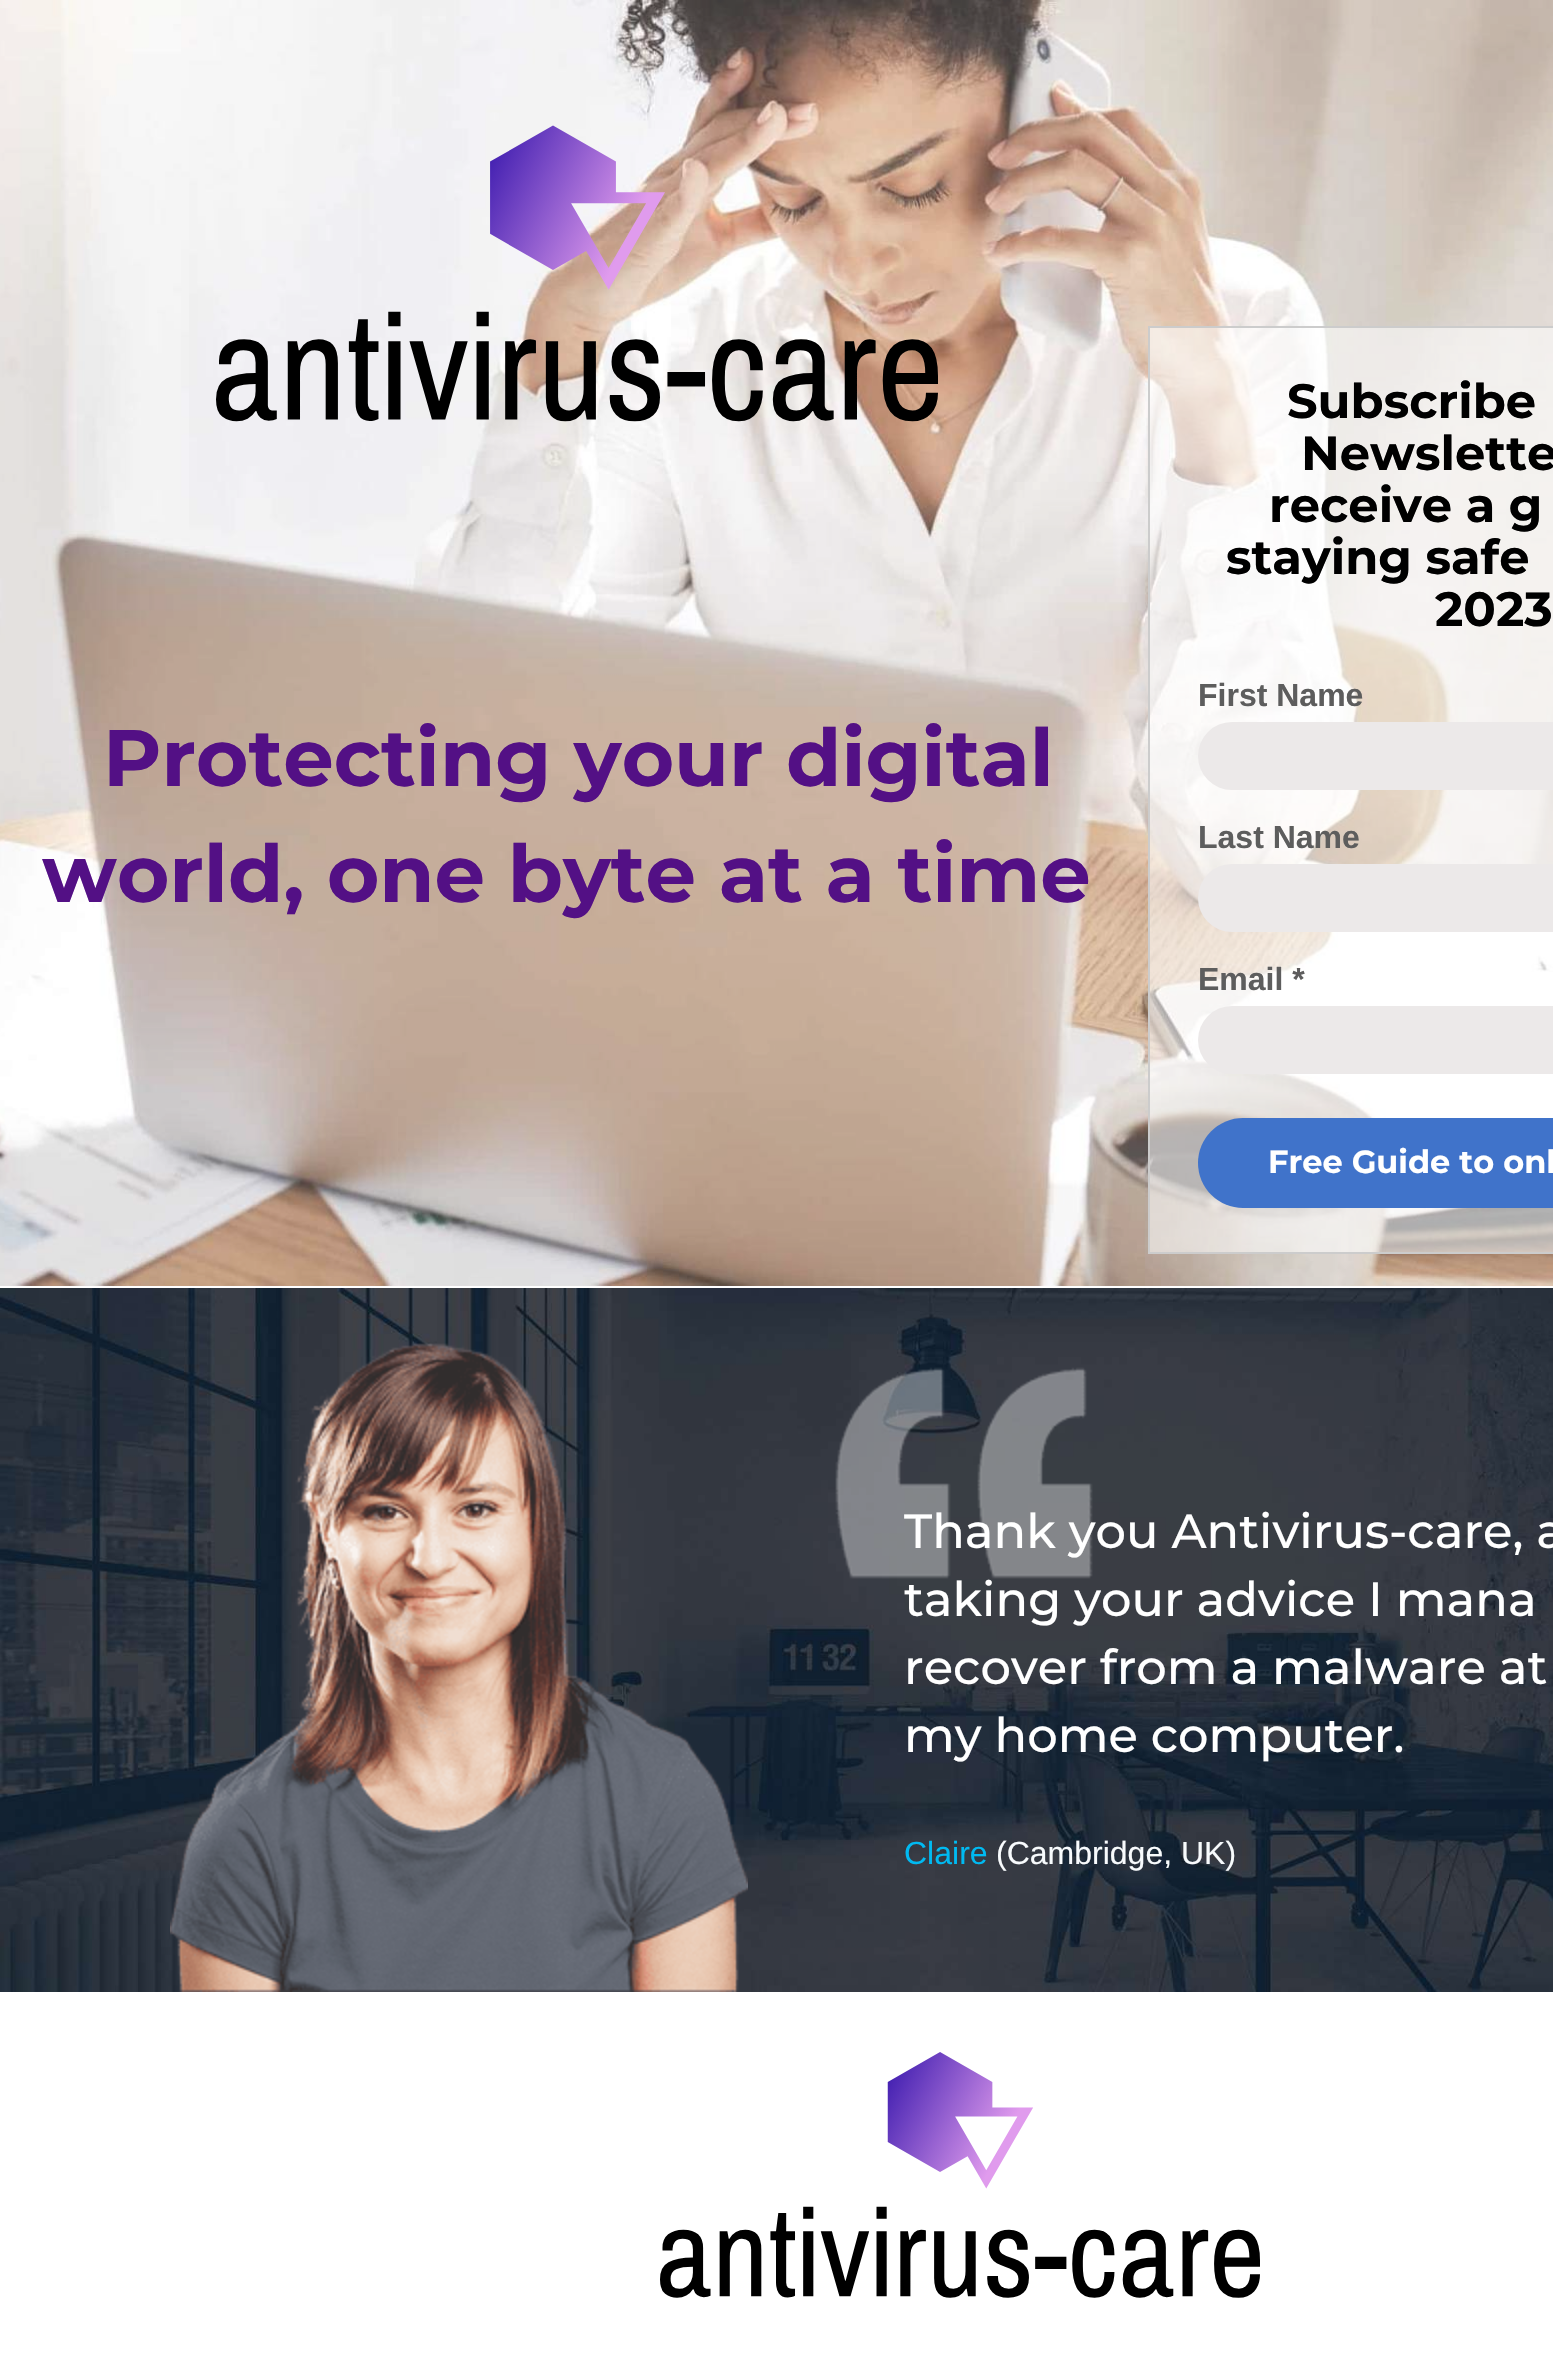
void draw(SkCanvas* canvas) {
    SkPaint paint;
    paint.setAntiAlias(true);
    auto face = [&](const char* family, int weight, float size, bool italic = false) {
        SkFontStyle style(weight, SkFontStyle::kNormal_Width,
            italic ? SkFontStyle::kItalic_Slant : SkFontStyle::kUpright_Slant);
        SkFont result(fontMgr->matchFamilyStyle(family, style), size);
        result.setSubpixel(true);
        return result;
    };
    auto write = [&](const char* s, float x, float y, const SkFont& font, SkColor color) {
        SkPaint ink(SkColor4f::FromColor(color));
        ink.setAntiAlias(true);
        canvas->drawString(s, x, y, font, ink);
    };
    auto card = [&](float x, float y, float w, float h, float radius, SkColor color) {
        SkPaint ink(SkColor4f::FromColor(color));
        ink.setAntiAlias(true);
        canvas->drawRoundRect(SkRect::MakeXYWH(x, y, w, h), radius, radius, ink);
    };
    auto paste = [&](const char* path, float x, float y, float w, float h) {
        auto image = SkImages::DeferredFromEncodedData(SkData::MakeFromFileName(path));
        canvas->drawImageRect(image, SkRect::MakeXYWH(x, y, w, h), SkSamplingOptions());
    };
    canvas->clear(SK_ColorWHITE);
    paste("pic1.png", 0, 0, 1553, 1286);
    paste("pic2.png", 216, 125, 722, 297);
    auto kFont1 = face("Montserrat", 700, 80);
    write("Protecting your digital", 103, 786, kFont1, SkColorSetRGB(83, 16, 133));
    write("world, one byte at a time", 42, 902, kFont1, SkColorSetRGB(83, 16, 133));
    paint.setColor(SkColorSetARGB(143, 255, 255, 255));
    canvas->drawRect(SkRect::MakeXYWH(1149, 327, 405, 926), paint);
    paint.setStyle(SkPaint::kStroke_Style);
    paint.setStrokeWidth(2);
    paint.setColor(SkColorSetRGB(204, 204, 204));
    canvas->drawRect(SkRect::MakeXYWH(1149, 327, 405, 926), paint);
    auto kFont2 = face("Montserrat", 700, 48);
    write("Subscribe", 1287, 418, kFont2, SK_ColorBLACK);
    write("Newslette", 1301, 470, kFont2, SK_ColorBLACK);
    write("receive a g", 1269, 522, kFont2, SK_ColorBLACK);
    write("staying safe", 1226, 574, kFont2, SK_ColorBLACK);
    write("2023", 1435, 626, kFont2, SK_ColorBLACK);
    auto kFont3 = face("Liberation Sans", 700, 32);
    write("First Name", 1198, 706, kFont3, SkColorSetRGB(93, 93, 93));
    card(1198, 722, 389, 68, 34, SkColorSetRGB(236, 233, 233));
    write("Last Name", 1198, 848, kFont3, SkColorSetRGB(93, 93, 93));
    card(1198, 864, 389, 68, 34, SkColorSetRGB(236, 233, 233));
    write("Email *", 1198, 990, kFont3, SkColorSetRGB(93, 93, 93));
    card(1198, 1006, 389, 68, 34, SkColorSetRGB(236, 233, 233));
    card(1198, 1118, 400, 90, 45, SkColorSetRGB(64, 115, 202));
    auto kFont4 = face("Montserrat", 700, 32);
    write("Free Guide to onl", 1268, 1173, kFont4, SK_ColorWHITE);
    paste("pic6.png", 0, 1288, 1553, 704);
    paste("pic3.png", 170, 1343, 578, 649);
    paste("pic4.png", 835, 1367, 258, 212);
    auto kFont5 = face("Montserrat", 500, 48);
    write("Thank you Antivirus-care, a", 904, 1548, kFont5, SK_ColorWHITE);
    write("taking your advice I mana", 904, 1616, kFont5, SK_ColorWHITE);
    write("recover from a malware at", 904, 1684, kFont5, SK_ColorWHITE);
    write("my home computer.", 904, 1752, kFont5, SK_ColorWHITE);
    auto kFont6 = face("Liberation Sans", 400, 32);
    write("Claire", 904, 1864, kFont6, SkColorSetRGB(0, 186, 242));
    write("(Cambridge, UK)", 996, 1864, kFont6, SkColorSetRGB(248, 251, 253));
    paste("pic5.png", 660, 2052, 600, 246);
}
